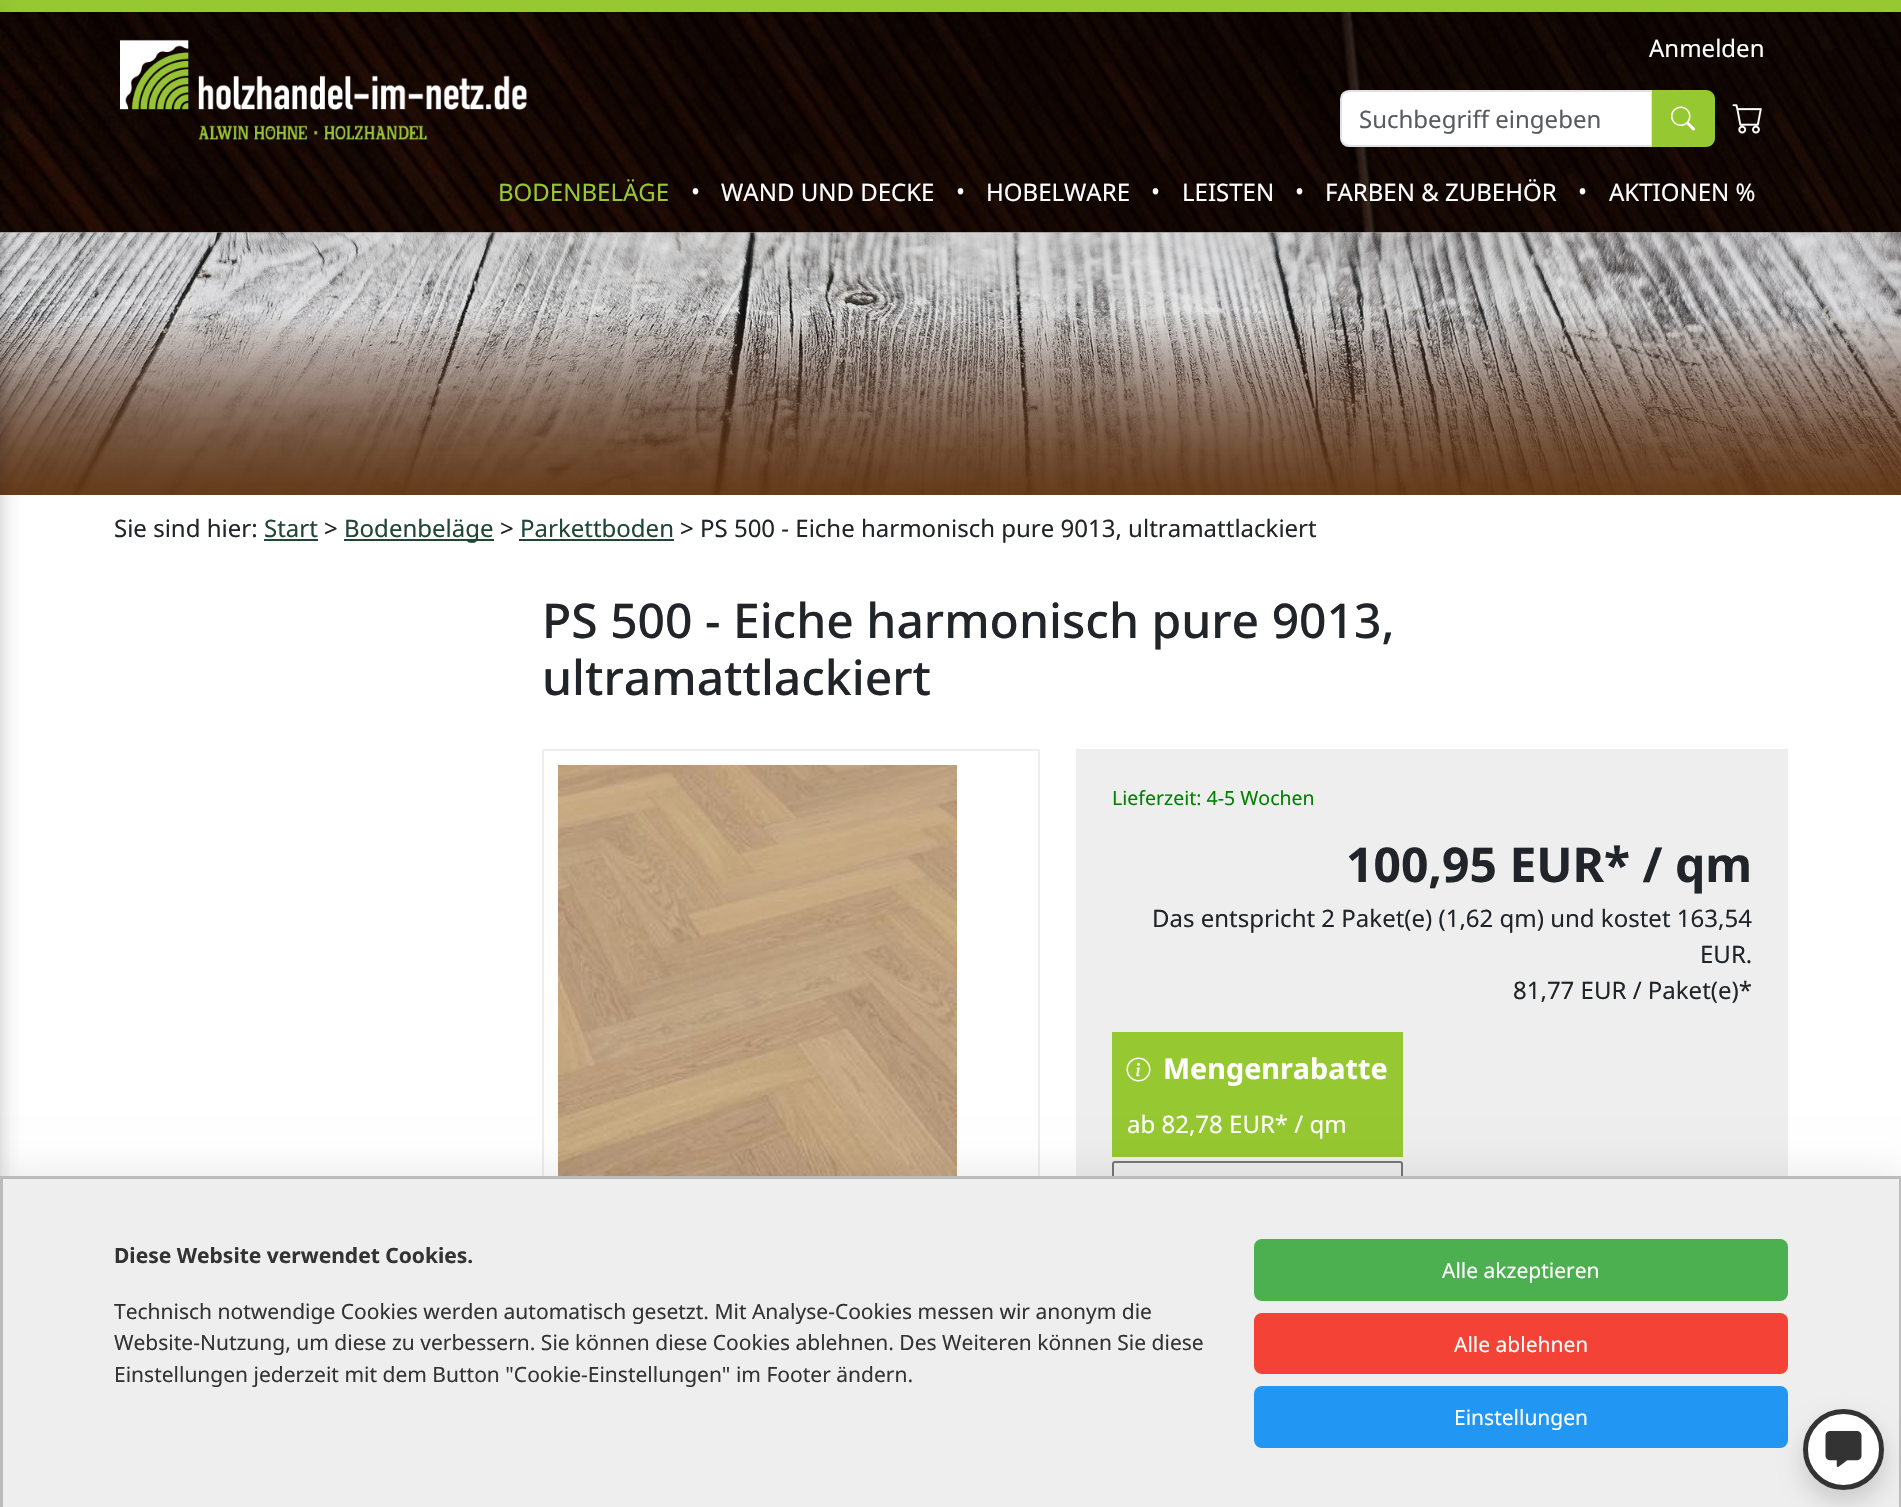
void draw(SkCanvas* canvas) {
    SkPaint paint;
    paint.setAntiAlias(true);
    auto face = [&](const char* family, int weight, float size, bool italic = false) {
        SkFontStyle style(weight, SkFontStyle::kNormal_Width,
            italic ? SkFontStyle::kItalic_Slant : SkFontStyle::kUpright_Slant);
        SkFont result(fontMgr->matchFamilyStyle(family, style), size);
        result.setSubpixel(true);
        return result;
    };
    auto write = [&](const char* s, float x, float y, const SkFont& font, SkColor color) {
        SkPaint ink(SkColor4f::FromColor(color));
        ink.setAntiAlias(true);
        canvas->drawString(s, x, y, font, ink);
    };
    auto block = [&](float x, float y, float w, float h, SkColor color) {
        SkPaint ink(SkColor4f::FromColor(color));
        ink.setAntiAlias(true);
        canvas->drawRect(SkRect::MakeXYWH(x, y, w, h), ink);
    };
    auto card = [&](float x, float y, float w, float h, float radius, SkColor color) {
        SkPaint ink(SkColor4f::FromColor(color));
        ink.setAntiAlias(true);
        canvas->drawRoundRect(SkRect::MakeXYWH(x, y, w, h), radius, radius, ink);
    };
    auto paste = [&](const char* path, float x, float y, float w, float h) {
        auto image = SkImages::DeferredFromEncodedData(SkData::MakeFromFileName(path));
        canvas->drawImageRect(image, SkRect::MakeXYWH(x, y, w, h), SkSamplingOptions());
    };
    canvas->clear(SK_ColorWHITE);
    paste("pic1.png", 0, 12, 1901, 221);
    block(0, 0, 1901, 12, SkColorSetRGB(150, 200, 49));
    paste("pic5.png", 0, 232, 1901, 263);
    paint.setColor(SK_ColorBLACK);
    paint.setMaskFilter(SkMaskFilter::MakeBlur(kNormal_SkBlurStyle, 19));
    canvas->drawRect(SkRect::MakeXYWH(-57, 23, 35, 1462), paint);
    paint.setMaskFilter(nullptr);
    paste("pic2.png", 120, 39, 407, 101);
    auto kFont1 = face("Noto Sans", 400, 24);
    write("Anmelden", 1649, 57, kFont1, SK_ColorWHITE);
    paint.setColor(SK_ColorWHITE);
    canvas->drawPath(SkPathBuilder().moveTo(1349, 91).lineTo(1652, 91).lineTo(1652, 146).lineTo(1349, 146).cubicTo(1344.5f, 146, 1341, 142.5f, 1341, 138).lineTo(1341, 99).cubicTo(1341, 94.5f, 1344.5f, 91, 1349, 91).close().detach(), paint);
    paint.setStyle(SkPaint::kStroke_Style);
    paint.setStrokeWidth(2);
    paint.setColor(SkColorSetRGB(222, 226, 230));
    canvas->drawPath(SkPathBuilder().moveTo(1349, 91).lineTo(1652, 91).lineTo(1652, 146).lineTo(1349, 146).cubicTo(1344.5f, 146, 1341, 142.5f, 1341, 138).lineTo(1341, 99).cubicTo(1341, 94.5f, 1344.5f, 91, 1349, 91).close().detach(), paint);
    write("Suchbegriff eingeben", 1359, 128, kFont1, SkColorSetRGB(89, 92, 95));
    paint.setStyle(SkPaint::kFill_Style);
    paint.setColor(SkColorSetRGB(150, 200, 49));
    canvas->drawPath(SkPathBuilder().moveTo(1652, 90).lineTo(1706, 90).cubicTo(1711, 90, 1715, 94, 1715, 99).lineTo(1715, 138).cubicTo(1715, 143, 1711, 147, 1706, 147).lineTo(1652, 147).close().detach(), paint);
    paste("pic3.png", 1671, 106, 24, 25);
    paste("pic4.png", 1732, 104, 30, 30);
    write("BODENBELÄGE", 498, 201, kFont1, SkColorSetRGB(150, 200, 49));
    write("•", 691, 200, kFont1, SK_ColorWHITE);
    write("WAND UND DECKE", 721, 201, kFont1, SK_ColorWHITE);
    write("•", 956, 200, kFont1, SK_ColorWHITE);
    write("HOBELWARE", 986, 201, kFont1, SK_ColorWHITE);
    write("•", 1151, 200, kFont1, SK_ColorWHITE);
    write("LEISTEN", 1182, 201, kFont1, SK_ColorWHITE);
    write("•", 1295, 200, kFont1, SK_ColorWHITE);
    write("FARBEN & ZUBEHÖR", 1325, 201, kFont1, SK_ColorWHITE);
    write("•", 1578, 200, kFont1, SK_ColorWHITE);
    write("AKTIONEN %", 1609, 201, kFont1, SK_ColorWHITE);
    write("Sie sind hier:", 114, 537, kFont1, SkColorSetRGB(33, 37, 41));
    write("Start", 264, 537, kFont1, SkColorSetRGB(32, 70, 53));
    block(264, 539, 54, 2, SkColorSetRGB(32, 70, 53));
    write(">", 324, 537, kFont1, SkColorSetRGB(33, 37, 41));
    block(344, 539, 150, 2, SkColorSetRGB(32, 70, 53));
    write("Bodenbeläge", 344, 537, kFont1, SkColorSetRGB(32, 70, 53));
    write(">", 500, 537, kFont1, SkColorSetRGB(33, 37, 41));
    write("Parkettboden", 520, 537, kFont1, SkColorSetRGB(32, 70, 53));
    block(519, 539, 155, 2, SkColorSetRGB(32, 70, 53));
    write("> PS 500 - Eiche harmonisch pure 9013, ultramattlackiert", 680, 537, kFont1, SkColorSetRGB(33, 37, 41));
    auto kFont2 = face("Noto Sans", 500, 48);
    write("PS 500 - Eiche harmonisch pure 9013,", 542, 638, kFont2, SkColorSetRGB(33, 37, 41));
    write("ultramattlackiert", 542, 695, kFont2, SkColorSetRGB(33, 37, 41));
    paint.setStyle(SkPaint::kStroke_Style);
    paint.setColor(SkColorSetRGB(238, 238, 238));
    canvas->drawRect(SkRect::MakeXYWH(543, 750, 496, 598), paint);
    paste("pic6.png", 558, 765, 399, 411);
    block(1076, 749, 712, 427, SkColorSetRGB(238, 238, 238));
    auto kFont3 = face("Noto Sans", 400, 19.5f);
    write("Lieferzeit: 4-5 Wochen", 1112, 805, kFont3, SkColorSetRGB(0, 128, 0));
    auto kFont4 = face("Noto Sans", 700, 48);
    write("100,95 EUR* / qm", 1346, 882, kFont4, SkColorSetRGB(33, 37, 41));
    write("Das entspricht 2 Paket(e) (1,62 qm) und kostet 163,54", 1152, 927, kFont1, SkColorSetRGB(33, 37, 41));
    write("EUR.", 1700, 963, kFont1, SkColorSetRGB(33, 37, 41));
    write("81,77 EUR / Paket(e)*", 1513, 999, kFont1, SkColorSetRGB(33, 37, 41));
    block(1112, 1032, 291, 125, SkColorSetRGB(150, 200, 49));
    paste("pic7.png", 1126, 1057, 25, 25);
    auto kFont5 = face("Noto Sans", 700, 28.75f);
    write("Mengenrabatte", 1163, 1079, kFont5, SK_ColorWHITE);
    write("ab 82,78 EUR* / qm", 1127, 1133, kFont1, SK_ColorWHITE);
    paint.setColor(SkColorSetRGB(118, 118, 118));
    canvas->drawRoundRect(SkRect::MakeXYWH(1113, 1162, 289, 106), 2, 2, paint);
    paint.setStyle(SkPaint::kFill_Style);
    paint.setColor(SkColorSetARGB(20, 0, 0, 0));
    paint.setMaskFilter(SkMaskFilter::MakeBlur(kNormal_SkBlurStyle, 18));
    canvas->drawRect(SkRect::MakeXYWH(0, 1170, 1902, 332), paint);
    paint.setMaskFilter(nullptr);
    block(3, 1179, 1896, 328, SkColorSetRGB(238, 238, 238));
    block(0, 1176, 1901, 3, SkColorSetRGB(187, 187, 187));
    block(1899, 1176, 2, 331, SkColorSetRGB(187, 187, 187));
    block(0, 1176, 3, 331, SkColorSetRGB(187, 187, 187));
    auto kFont6 = face("Noto Sans", 700, 21);
    write("Diese Website verwendet Cookies.", 114, 1263, kFont6, SkColorSetRGB(51, 51, 51));
    auto kFont7 = face("Noto Sans", 400, 21);
    write("Technisch notwendige Cookies werden automatisch gesetzt. Mit Analyse-Cookies messen wir anonym die", 114, 1319, kFont7, SkColorSetRGB(51, 51, 51));
    write("Website-Nutzung, um diese zu verbessern. Sie können diese Cookies ablehnen. Des Weiteren können Sie diese", 114, 1350, kFont7, SkColorSetRGB(51, 51, 51));
    write("Einstellungen jederzeit mit dem Button \"Cookie-Einstellungen\" im Footer ändern.", 114, 1382, kFont7, SkColorSetRGB(51, 51, 51));
    card(1254, 1239, 534, 62, 8, SkColorSetRGB(76, 175, 80));
    write("Alle akzeptieren", 1442, 1278, kFont7, SK_ColorWHITE);
    card(1254, 1313, 534, 61, 8, SkColorSetRGB(244, 67, 54));
    write("Alle ablehnen", 1454, 1352, kFont7, SK_ColorWHITE);
    card(1254, 1386, 534, 62, 8, SkColorSetRGB(33, 150, 243));
    write("Einstellungen", 1454, 1425, kFont7, SK_ColorWHITE);
    paint.setColor(SkColorSetARGB(36, 0, 0, 0));
    paint.setMaskFilter(SkMaskFilter::MakeBlur(kNormal_SkBlurStyle, 11));
    canvas->drawRoundRect(SkRect::MakeXYWH(1802, 1419, 84, 84), 42, 42, paint);
    paint.setMaskFilter(nullptr);
    paint.setColor(SK_ColorWHITE);
    canvas->drawCircle(1843.5f, 1449.5f, 38, paint);
    paint.setStyle(SkPaint::kStroke_Style);
    paint.setStrokeWidth(5);
    paint.setColor(SkColorSetRGB(51, 51, 51));
    canvas->drawCircle(1843.5f, 1449.5f, 38, paint);
    paste("pic8.png", 1825, 1431, 37, 36);
}
